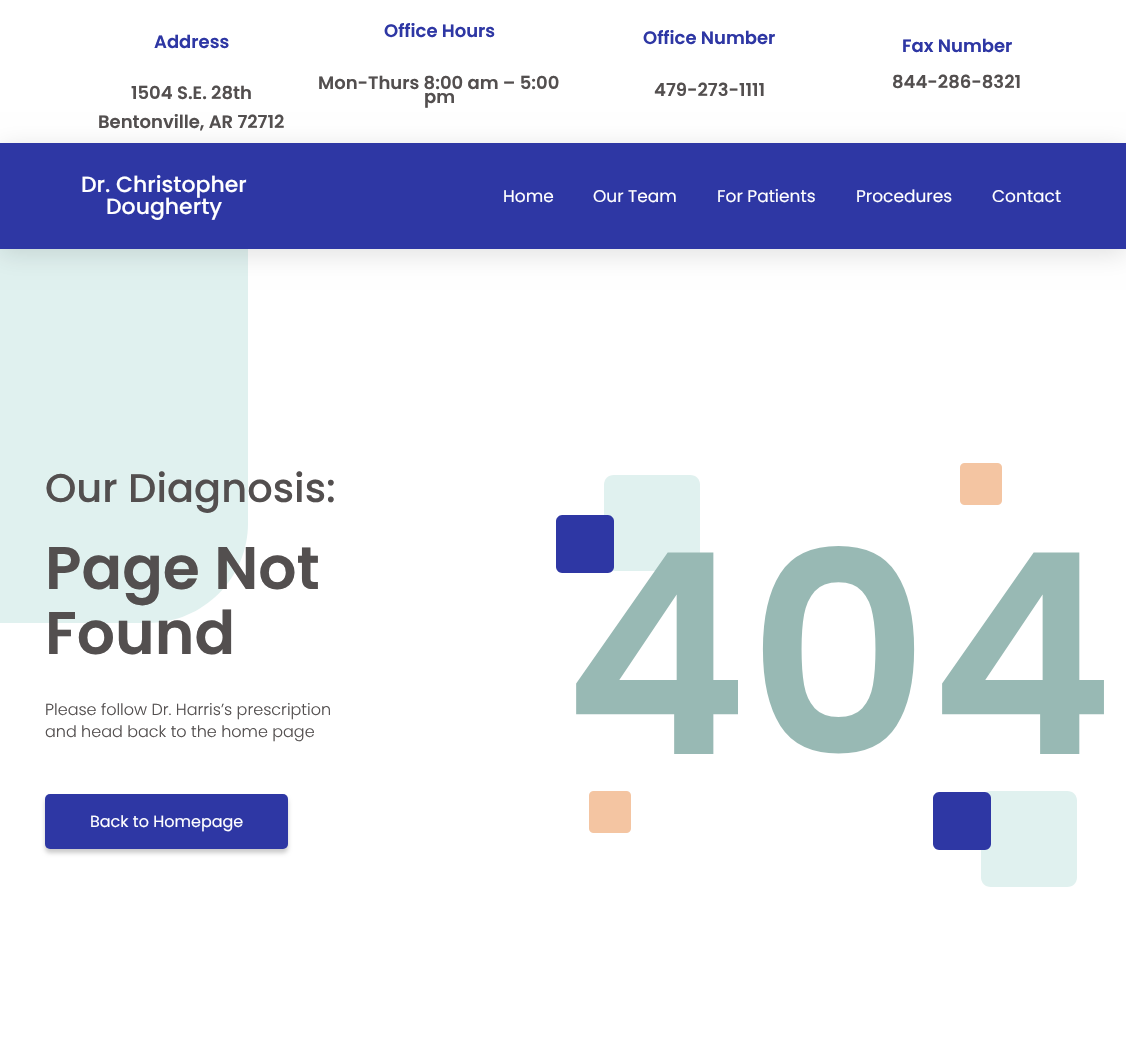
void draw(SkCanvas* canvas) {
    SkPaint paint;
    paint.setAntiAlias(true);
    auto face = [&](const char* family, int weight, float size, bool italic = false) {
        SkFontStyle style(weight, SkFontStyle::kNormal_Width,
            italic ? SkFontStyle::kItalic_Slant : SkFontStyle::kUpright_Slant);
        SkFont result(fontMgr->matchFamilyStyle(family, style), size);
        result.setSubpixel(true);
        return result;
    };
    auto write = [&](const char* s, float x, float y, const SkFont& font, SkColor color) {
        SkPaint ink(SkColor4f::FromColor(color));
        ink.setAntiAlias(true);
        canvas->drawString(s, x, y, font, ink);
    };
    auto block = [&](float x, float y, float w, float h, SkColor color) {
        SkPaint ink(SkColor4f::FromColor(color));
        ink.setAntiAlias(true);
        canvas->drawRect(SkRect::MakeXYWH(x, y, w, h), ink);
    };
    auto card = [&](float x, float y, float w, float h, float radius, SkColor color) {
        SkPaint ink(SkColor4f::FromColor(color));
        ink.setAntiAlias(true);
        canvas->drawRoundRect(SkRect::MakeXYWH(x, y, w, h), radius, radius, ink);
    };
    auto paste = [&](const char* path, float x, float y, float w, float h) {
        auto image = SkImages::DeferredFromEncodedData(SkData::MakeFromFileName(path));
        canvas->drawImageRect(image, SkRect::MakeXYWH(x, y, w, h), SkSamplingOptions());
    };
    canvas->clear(SK_ColorWHITE);
    auto kFont1 = face("Poppins", 600, 18);
    write("Address", 154, 48, kFont1, SkColorSetRGB(46, 55, 164));
    write("1504 S.E. 28th", 131, 99, kFont1, SkColorSetRGB(83, 79, 79));
    write("Bentonville, AR 72712", 98, 128, kFont1, SkColorSetRGB(83, 79, 79));
    write("Office Hours", 384, 37, kFont1, SkColorSetRGB(46, 55, 164));
    write("Mon-Thurs 8:00 am – 5:00", 318, 89, kFont1, SkColorSetRGB(83, 79, 79));
    write("pm", 424, 103, kFont1, SkColorSetRGB(83, 79, 79));
    write("Office Number", 643, 44, kFont1, SkColorSetRGB(46, 55, 164));
    write("479-273-1111", 654, 96, kFont1, SkColorSetRGB(83, 79, 79));
    write("Fax Number", 902, 52, kFont1, SkColorSetRGB(46, 55, 164));
    write("844-286-8321", 892, 88, kFont1, SkColorSetRGB(83, 79, 79));
    paint.setColor(SkColorSetRGB(224, 241, 239));
    canvas->drawPath(SkPathBuilder().moveTo(0, 249).lineTo(248, 249).lineTo(248, 523).cubicTo(248, 578, 203, 623, 148, 623).lineTo(0, 623).close().detach(), paint);
    paint.setColor(SkColorSetARGB(31, 0, 0, 0));
    paint.setMaskFilter(SkMaskFilter::MakeBlur(kNormal_SkBlurStyle, 12));
    canvas->drawRect(SkRect::MakeXYWH(0, 148, 1126, 106), paint);
    paint.setMaskFilter(nullptr);
    block(0, 143, 1126, 106, SkColorSetRGB(46, 55, 164));
    auto kFont2 = face("Poppins", 500, 22);
    write("Dr. Christopher", 81, 192, kFont2, SK_ColorWHITE);
    write("Dougherty", 106, 214, kFont2, SK_ColorWHITE);
    auto kFont3 = face("Poppins", 400, 17);
    write("Home", 503, 202, kFont3, SK_ColorWHITE);
    write("Our Team", 593, 202, kFont3, SK_ColorWHITE);
    write("For Patients", 717, 202, kFont3, SK_ColorWHITE);
    write("Procedures", 856, 202, kFont3, SK_ColorWHITE);
    write("Contact", 992, 202, kFont3, SK_ColorWHITE);
    paste("pic1.png", 960, 463, 42, 42);
    auto kFont4 = face("Poppins", 500, 40);
    write("Our Diagnosis:", 45, 502, kFont4, SkColorSetRGB(83, 79, 79));
    auto kFont5 = face("Poppins", 600, 60);
    write("Page Not", 45, 589, kFont5, SkColorSetRGB(83, 79, 79));
    write("Found", 45, 654, kFont5, SkColorSetRGB(83, 79, 79));
    auto kFont6 = face("Poppins", 300, 16);
    write("Please follow Dr. Harris’s prescription", 45, 715, kFont6, SkColorSetRGB(83, 79, 79));
    write("and head back to the home page", 45, 737, kFont6, SkColorSetRGB(83, 79, 79));
    paint.setColor(SkColorSetARGB(51, 0, 0, 0));
    paint.setMaskFilter(SkMaskFilter::MakeBlur(kNormal_SkBlurStyle, 2));
    canvas->drawRoundRect(SkRect::MakeXYWH(45, 798, 243, 55), 5, 5, paint);
    paint.setMaskFilter(nullptr);
    card(45, 794, 243, 55, 5, SkColorSetRGB(46, 55, 164));
    auto kFont7 = face("Poppins", 400, 16);
    write("Back to Homepage", 90, 827, kFont7, SK_ColorWHITE);
    paint.setColor(SkColorSetRGB(224, 241, 239));
    canvas->drawPath(SkPathBuilder().moveTo(690, 475).lineTo(614, 475).cubicTo(608, 475, 604, 479, 604, 485).lineTo(604, 561).cubicTo(604, 567, 608, 571, 614, 571).lineTo(690, 571).cubicTo(696, 571, 700, 567, 700, 561).lineTo(700, 485).cubicTo(700, 479, 696, 475, 690, 475).close().detach(), paint);
    paint.setColor(SkColorSetRGB(46, 55, 164));
    canvas->drawPath(SkPathBuilder().moveTo(608, 515).lineTo(562, 515).cubicTo(559, 515, 556, 518, 556, 521).lineTo(556, 567).cubicTo(556, 570, 559, 573, 562, 573).lineTo(608, 573).cubicTo(611, 573, 614, 570, 614, 567).lineTo(614, 521).cubicTo(614, 518, 611, 515, 608, 515).close().detach(), paint);
    auto kFont8 = face("Poppins", 600, 280);
    write("404", 563, 754, kFont8, SkColorSetRGB(152, 185, 180));
    paste("pic1.png", 589, 791, 42, 42);
    paint.setColor(SkColorSetRGB(224, 241, 239));
    canvas->drawPath(SkPathBuilder().moveTo(1067, 791).lineTo(991, 791).cubicTo(985, 791, 981, 795, 981, 801).lineTo(981, 877).cubicTo(981, 883, 985, 887, 991, 887).lineTo(1067, 887).cubicTo(1073, 887, 1077, 883, 1077, 877).lineTo(1077, 801).cubicTo(1077, 795, 1073, 791, 1067, 791).close().detach(), paint);
    paint.setColor(SkColorSetRGB(46, 55, 164));
    canvas->drawPath(SkPathBuilder().moveTo(985, 792).lineTo(939, 792).cubicTo(936, 792, 933, 795, 933, 798).lineTo(933, 844).cubicTo(933, 847, 936, 850, 939, 850).lineTo(985, 850).cubicTo(988, 850, 991, 847, 991, 844).lineTo(991, 798).cubicTo(991, 795, 988, 792, 985, 792).close().detach(), paint);
}
